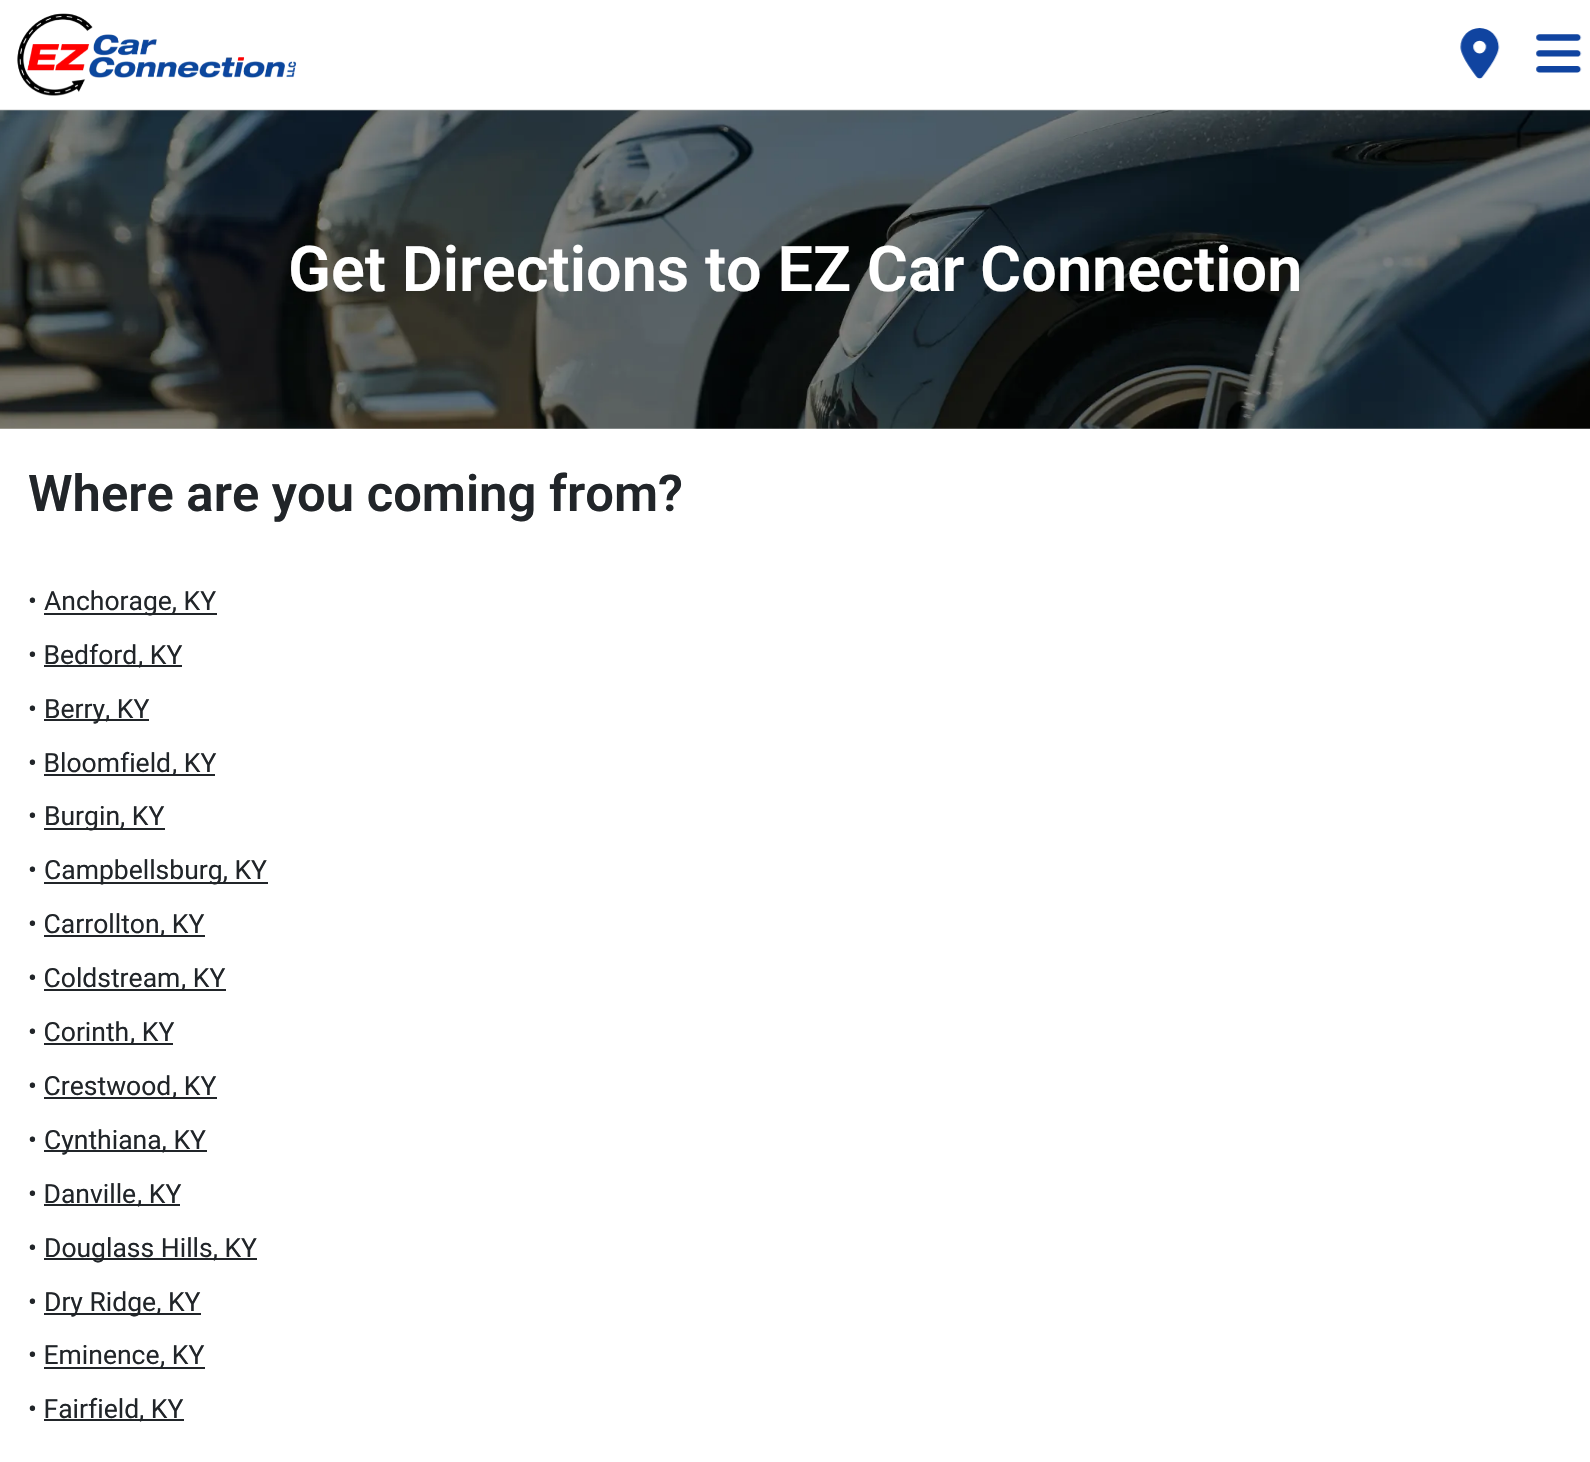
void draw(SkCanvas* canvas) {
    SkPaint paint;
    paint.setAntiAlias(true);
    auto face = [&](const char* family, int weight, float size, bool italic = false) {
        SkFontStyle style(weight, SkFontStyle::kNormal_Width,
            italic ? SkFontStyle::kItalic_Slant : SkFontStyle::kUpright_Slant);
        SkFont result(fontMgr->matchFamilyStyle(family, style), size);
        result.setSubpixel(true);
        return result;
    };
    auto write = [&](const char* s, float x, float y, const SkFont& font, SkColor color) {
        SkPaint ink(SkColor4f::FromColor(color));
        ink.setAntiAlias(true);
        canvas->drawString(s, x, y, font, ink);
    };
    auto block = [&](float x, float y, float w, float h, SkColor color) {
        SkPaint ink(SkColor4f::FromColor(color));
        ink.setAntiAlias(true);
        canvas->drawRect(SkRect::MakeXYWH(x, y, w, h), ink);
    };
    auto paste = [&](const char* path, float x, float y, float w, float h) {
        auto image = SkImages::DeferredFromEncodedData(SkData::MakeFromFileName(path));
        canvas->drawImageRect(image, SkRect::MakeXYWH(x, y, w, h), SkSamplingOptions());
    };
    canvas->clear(SK_ColorWHITE);
    paste("pic4.png", 0, 110, 1590, 319);
    block(0, 109, 1590, 2, SkColorSetARGB(26, 24, 28, 33));
    paste("pic1.png", 17, 13, 280, 83);
    paste("pic2.png", 1460, 28, 40, 51);
    paste("pic3.png", 1536, 34, 46, 39);
    auto kFont1 = face("Roboto", 600, 63);
    write("Get Directions to EZ Car Connection", 288, 291, kFont1, SK_ColorWHITE);
    auto kFont2 = face("Roboto", 600, 50.75f);
    write("Where are you coming from?", 28, 511, kFont2, SkColorSetRGB(33, 37, 41));
    auto kFont3 = face("Roboto", 400, 26.5f);
    write("•", 28, 610, kFont3, SkColorSetRGB(33, 37, 41));
    block(44, 613, 173, 2, SkColorSetRGB(33, 37, 41));
    write("Anchorage, KY", 44, 610, kFont3, SkColorSetRGB(33, 37, 41));
    write("• Bedford", 28, 664, kFont3, SkColorSetRGB(33, 37, 41));
    block(44, 665, 138, 2, SkColorSetRGB(33, 37, 41));
    write(", KY", 138, 664, kFont3, SkColorSetRGB(33, 37, 41));
    write("•", 28, 718, kFont3, SkColorSetRGB(33, 37, 41));
    block(44, 719, 105, 2, SkColorSetRGB(33, 37, 41));
    write("Berry, KY", 44, 718, kFont3, SkColorSetRGB(33, 37, 41));
    write("• Bloomfield", 28, 772, kFont3, SkColorSetRGB(33, 37, 41));
    block(44, 774, 171, 2, SkColorSetRGB(33, 37, 41));
    write(", KY", 172, 772, kFont3, SkColorSetRGB(33, 37, 41));
    write("•", 28, 825, kFont3, SkColorSetRGB(33, 37, 41));
    block(44, 828, 121, 2, SkColorSetRGB(33, 37, 41));
    write("Burgin, KY", 44, 825, kFont3, SkColorSetRGB(33, 37, 41));
    write("•", 28, 879, kFont3, SkColorSetRGB(33, 37, 41));
    block(44, 882, 224, 2, SkColorSetRGB(33, 37, 41));
    write("Campbellsburg, KY", 44, 879, kFont3, SkColorSetRGB(33, 37, 41));
    write("• Carrollton", 28, 933, kFont3, SkColorSetRGB(33, 37, 41));
    block(44, 935, 161, 2, SkColorSetRGB(33, 37, 41));
    write(", KY", 160, 933, kFont3, SkColorSetRGB(33, 37, 41));
    write("• Coldstream", 28, 987, kFont3, SkColorSetRGB(33, 37, 41));
    block(44, 989, 182, 2, SkColorSetRGB(33, 37, 41));
    write(", KY", 181, 987, kFont3, SkColorSetRGB(33, 37, 41));
    write("• Corinth", 28, 1041, kFont3, SkColorSetRGB(33, 37, 41));
    block(44, 1043, 129, 2, SkColorSetRGB(33, 37, 41));
    write(", KY", 130, 1041, kFont3, SkColorSetRGB(33, 37, 41));
    write("• Crestwood", 28, 1095, kFont3, SkColorSetRGB(33, 37, 41));
    block(44, 1097, 173, 2, SkColorSetRGB(33, 37, 41));
    write(", KY", 172, 1095, kFont3, SkColorSetRGB(33, 37, 41));
    write("•", 28, 1149, kFont3, SkColorSetRGB(33, 37, 41));
    block(44, 1150, 163, 2, SkColorSetRGB(33, 37, 41));
    write("Cynthiana, KY", 44, 1149, kFont3, SkColorSetRGB(33, 37, 41));
    write("• Danville", 28, 1203, kFont3, SkColorSetRGB(33, 37, 41));
    block(44, 1204, 136, 2, SkColorSetRGB(33, 37, 41));
    write(", KY", 137, 1203, kFont3, SkColorSetRGB(33, 37, 41));
    write("•", 28, 1257, kFont3, SkColorSetRGB(33, 37, 41));
    block(44, 1258, 213, 2, SkColorSetRGB(33, 37, 41));
    write("Douglass Hills, KY", 44, 1257, kFont3, SkColorSetRGB(33, 37, 41));
    write("•", 28, 1311, kFont3, SkColorSetRGB(33, 37, 41));
    block(44, 1313, 157, 2, SkColorSetRGB(33, 37, 41));
    write("Dry Ridge, KY", 44, 1311, kFont3, SkColorSetRGB(33, 37, 41));
    write("• Eminence", 28, 1364, kFont3, SkColorSetRGB(33, 37, 41));
    block(44, 1367, 161, 2, SkColorSetRGB(33, 37, 41));
    write(", KY", 160, 1364, kFont3, SkColorSetRGB(33, 37, 41));
    write("• Fairfield", 28, 1418, kFont3, SkColorSetRGB(33, 37, 41));
    block(44, 1419, 140, 2, SkColorSetRGB(33, 37, 41));
    write(", KY", 139, 1418, kFont3, SkColorSetRGB(33, 37, 41));
}
